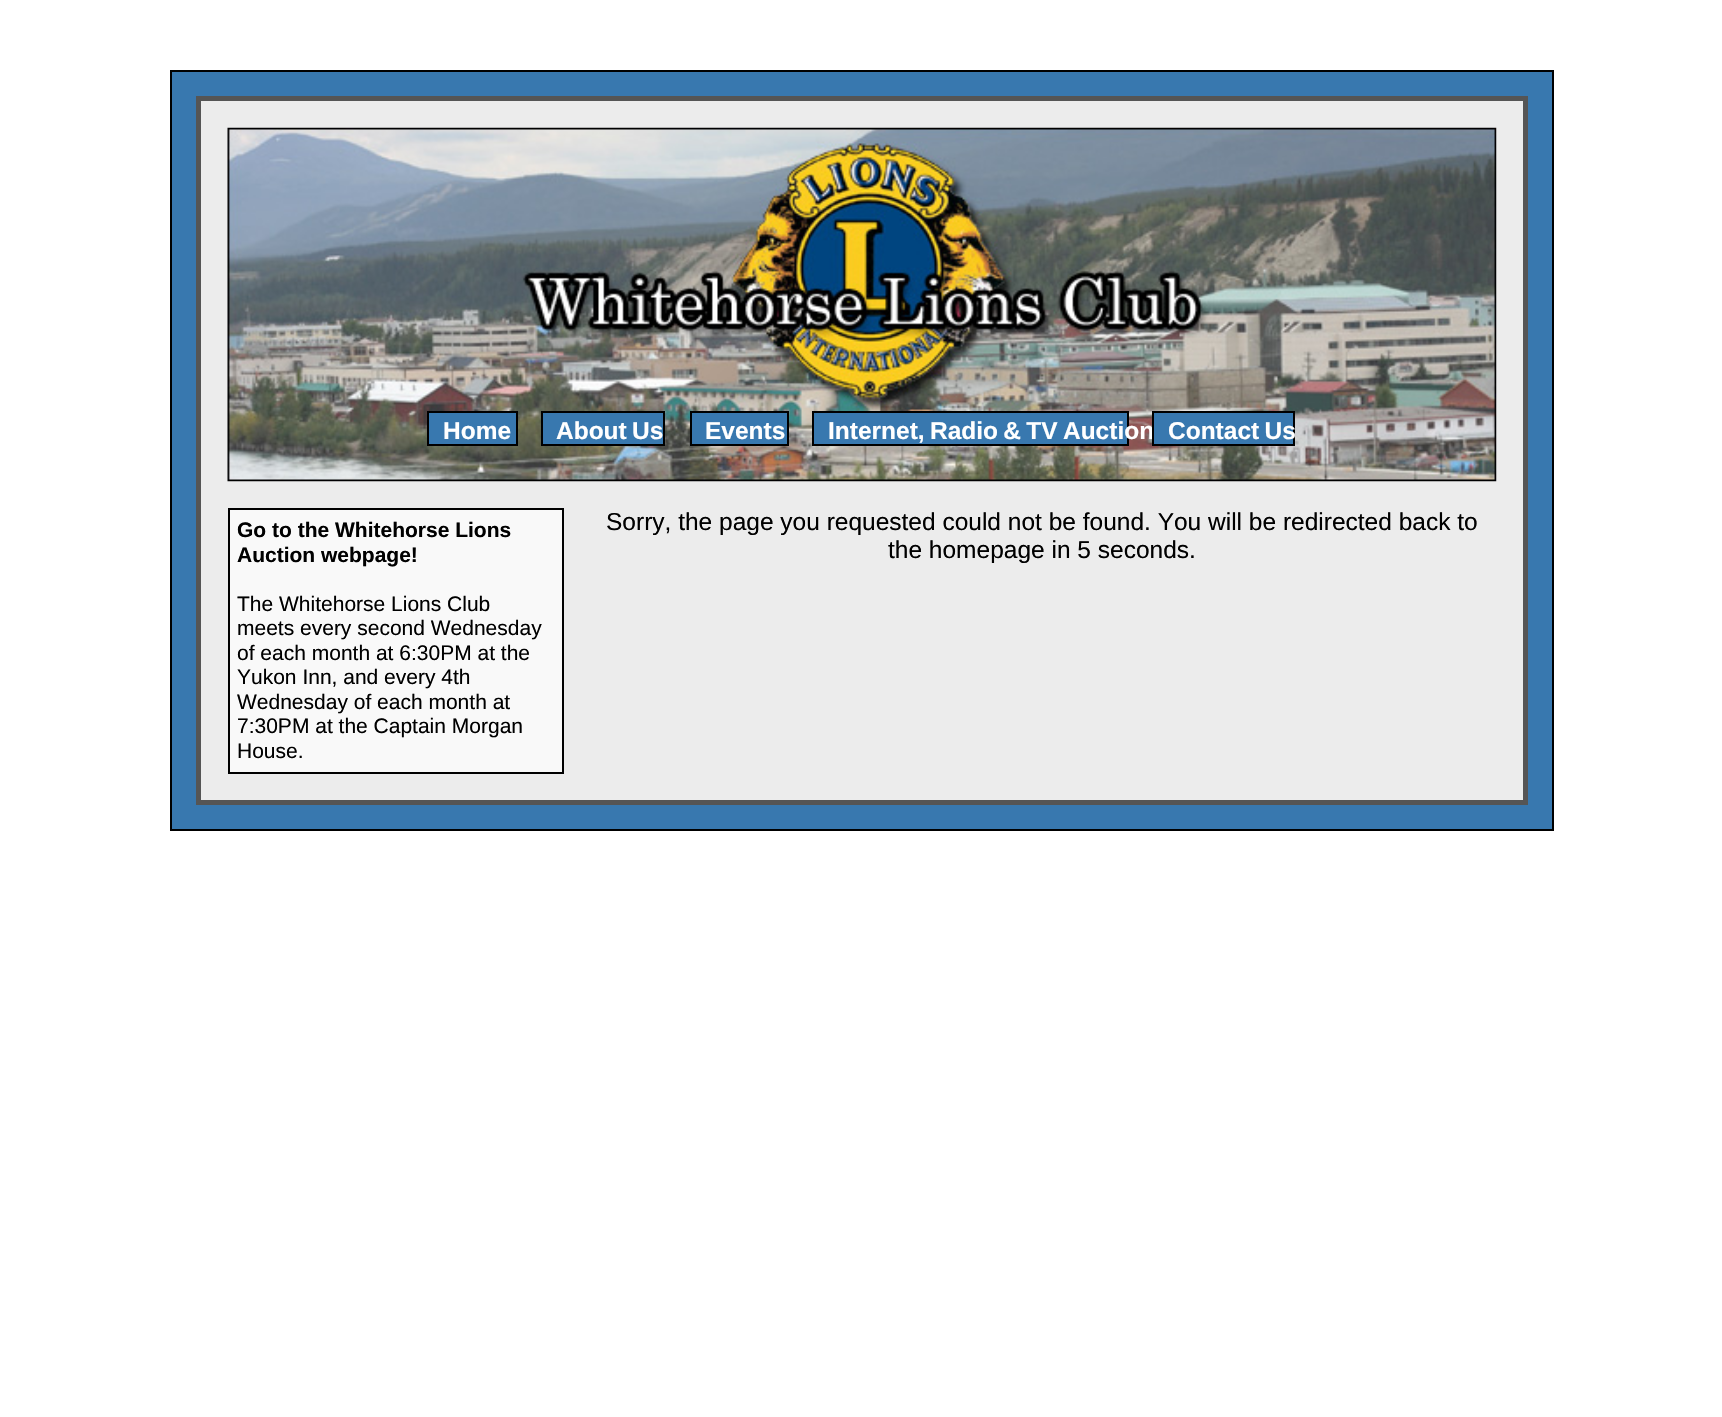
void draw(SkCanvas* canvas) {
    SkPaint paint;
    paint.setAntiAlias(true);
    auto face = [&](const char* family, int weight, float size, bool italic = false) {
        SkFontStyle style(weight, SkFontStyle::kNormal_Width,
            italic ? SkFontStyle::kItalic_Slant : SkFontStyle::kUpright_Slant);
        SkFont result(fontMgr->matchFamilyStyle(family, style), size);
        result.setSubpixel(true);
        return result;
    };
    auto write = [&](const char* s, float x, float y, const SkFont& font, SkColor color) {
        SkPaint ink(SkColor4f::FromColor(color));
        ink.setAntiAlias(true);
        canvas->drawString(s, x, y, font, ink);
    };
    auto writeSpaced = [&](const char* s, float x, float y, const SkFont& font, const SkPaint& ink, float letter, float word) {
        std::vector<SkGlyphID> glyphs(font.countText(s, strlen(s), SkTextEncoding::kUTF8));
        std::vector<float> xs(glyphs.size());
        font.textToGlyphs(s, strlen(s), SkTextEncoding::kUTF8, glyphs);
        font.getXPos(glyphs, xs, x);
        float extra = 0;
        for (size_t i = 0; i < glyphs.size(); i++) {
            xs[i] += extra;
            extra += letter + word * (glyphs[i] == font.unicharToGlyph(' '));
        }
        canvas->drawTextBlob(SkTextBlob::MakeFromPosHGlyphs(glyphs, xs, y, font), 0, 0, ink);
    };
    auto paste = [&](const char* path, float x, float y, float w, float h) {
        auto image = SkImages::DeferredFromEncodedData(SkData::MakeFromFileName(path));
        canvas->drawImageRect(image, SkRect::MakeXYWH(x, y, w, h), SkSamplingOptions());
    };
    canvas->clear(SK_ColorWHITE);
    paint.setColor(SkColorSetRGB(56, 120, 175));
    canvas->drawRect(SkRect::MakeXYWH(171, 71, 1382, 759), paint);
    paint.setStyle(SkPaint::kStroke_Style);
    paint.setStrokeWidth(2);
    paint.setColor(SK_ColorBLACK);
    canvas->drawRect(SkRect::MakeXYWH(171, 71, 1382, 759), paint);
    paint.setStyle(SkPaint::kFill_Style);
    paint.setColor(SkColorSetRGB(236, 236, 236));
    canvas->drawRect(SkRect::MakeXYWH(198.5f, 98.5f, 1327, 704), paint);
    paint.setStyle(SkPaint::kStroke_Style);
    paint.setStrokeWidth(5);
    paint.setColor(SkColorSetRGB(85, 85, 85));
    canvas->drawRect(SkRect::MakeXYWH(198.5f, 98.5f, 1327, 704), paint);
    paste("pic1.png", 227, 127, 1270, 355);
    paint.setStyle(SkPaint::kFill_Style);
    paint.setColor(SkColorSetRGB(56, 120, 175));
    canvas->drawRect(SkRect::MakeXYWH(428, 412, 89, 33), paint);
    paint.setStyle(SkPaint::kStroke_Style);
    paint.setStrokeWidth(2);
    paint.setColor(SK_ColorBLACK);
    canvas->drawRect(SkRect::MakeXYWH(428, 412, 89, 33), paint);
    auto kFont1 = face("Liberation Sans", 700, 24.5f);
    write("Home", 443, 439, kFont1, SK_ColorWHITE);
    paint.setStyle(SkPaint::kFill_Style);
    paint.setColor(SkColorSetRGB(56, 120, 175));
    canvas->drawRect(SkRect::MakeXYWH(542, 412, 122, 33), paint);
    paint.setStyle(SkPaint::kStroke_Style);
    paint.setColor(SK_ColorBLACK);
    canvas->drawRect(SkRect::MakeXYWH(542, 412, 122, 33), paint);
    paint.setStyle(SkPaint::kFill_Style);
    paint.setColor(SK_ColorWHITE);
    writeSpaced("About Us", 556, 439, kFont1, paint, 0, -1.5f);
    paint.setColor(SkColorSetRGB(56, 120, 175));
    canvas->drawRect(SkRect::MakeXYWH(691, 412, 97, 33), paint);
    paint.setStyle(SkPaint::kStroke_Style);
    paint.setColor(SK_ColorBLACK);
    canvas->drawRect(SkRect::MakeXYWH(691, 412, 97, 33), paint);
    write("Events", 705, 439, kFont1, SK_ColorWHITE);
    paint.setStyle(SkPaint::kFill_Style);
    paint.setColor(SkColorSetRGB(56, 120, 175));
    canvas->drawRect(SkRect::MakeXYWH(813, 412, 315, 33), paint);
    paint.setStyle(SkPaint::kStroke_Style);
    paint.setColor(SK_ColorBLACK);
    canvas->drawRect(SkRect::MakeXYWH(813, 412, 315, 33), paint);
    paint.setStyle(SkPaint::kFill_Style);
    paint.setColor(SK_ColorWHITE);
    writeSpaced("Internet, Radio & TV Auction", 828, 439, kFont1, paint, 0, -1.5f);
    paint.setColor(SkColorSetRGB(56, 120, 175));
    canvas->drawRect(SkRect::MakeXYWH(1153, 412, 141, 33), paint);
    paint.setStyle(SkPaint::kStroke_Style);
    paint.setColor(SK_ColorBLACK);
    canvas->drawRect(SkRect::MakeXYWH(1153, 412, 141, 33), paint);
    paint.setStyle(SkPaint::kFill_Style);
    paint.setColor(SK_ColorWHITE);
    writeSpaced("Contact Us", 1168, 439, kFont1, paint, 0, -1.5f);
    paint.setColor(SkColorSetRGB(249, 249, 249));
    canvas->drawRect(SkRect::MakeXYWH(229, 509, 334, 264), paint);
    paint.setStyle(SkPaint::kStroke_Style);
    paint.setColor(SK_ColorBLACK);
    canvas->drawRect(SkRect::MakeXYWH(229, 509, 334, 264), paint);
    auto kFont2 = face("Liberation Sans", 700, 21);
    write("Go to the Whitehorse Lions", 237, 537, kFont2, SK_ColorBLACK);
    write("Auction webpage!", 237, 562, kFont2, SK_ColorBLACK);
    auto kFont3 = face("Liberation Sans", 400, 21);
    write("The Whitehorse Lions Club", 237, 611, kFont3, SK_ColorBLACK);
    write("meets every second Wednesday", 237, 635, kFont3, SK_ColorBLACK);
    write("of each month at 6:30PM at the", 237, 660, kFont3, SK_ColorBLACK);
    write("Yukon Inn, and every 4th", 237, 684, kFont3, SK_ColorBLACK);
    write("Wednesday of each month at", 237, 709, kFont3, SK_ColorBLACK);
    write("7:30PM at the Captain Morgan", 237, 733, kFont3, SK_ColorBLACK);
    write("House.", 237, 758, kFont3, SK_ColorBLACK);
    auto kFont4 = face("Liberation Sans", 400, 24.5f);
    write("Sorry, the page you requested could not be found. You will be redirected back to", 606, 530, kFont4, SK_ColorBLACK);
    write("the homepage in 5 seconds.", 888, 558, kFont4, SK_ColorBLACK);
}
